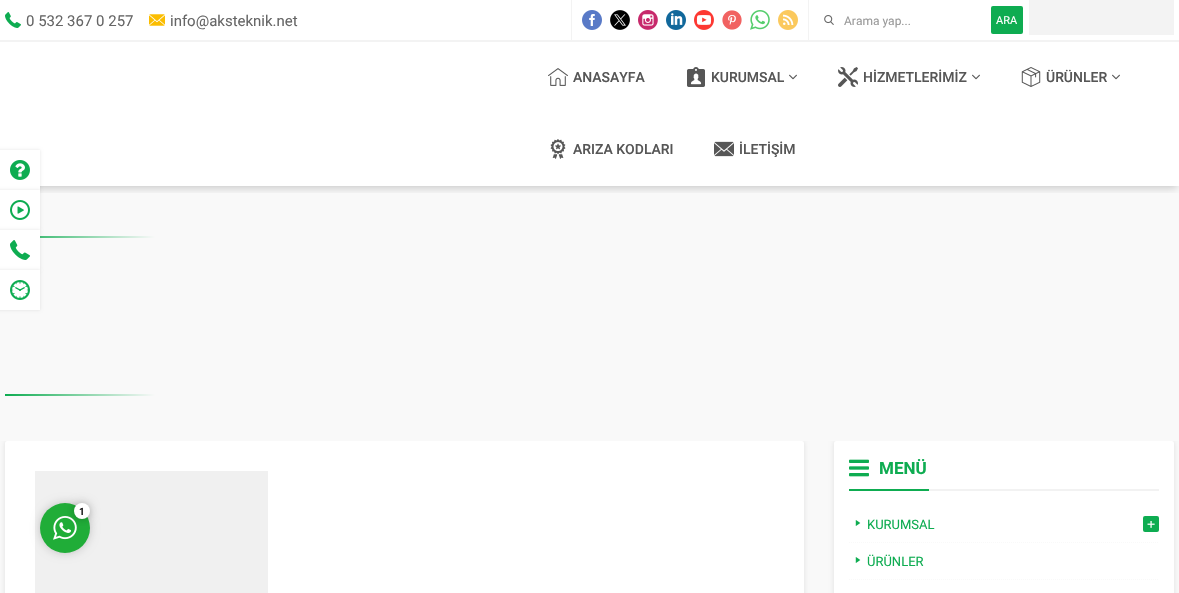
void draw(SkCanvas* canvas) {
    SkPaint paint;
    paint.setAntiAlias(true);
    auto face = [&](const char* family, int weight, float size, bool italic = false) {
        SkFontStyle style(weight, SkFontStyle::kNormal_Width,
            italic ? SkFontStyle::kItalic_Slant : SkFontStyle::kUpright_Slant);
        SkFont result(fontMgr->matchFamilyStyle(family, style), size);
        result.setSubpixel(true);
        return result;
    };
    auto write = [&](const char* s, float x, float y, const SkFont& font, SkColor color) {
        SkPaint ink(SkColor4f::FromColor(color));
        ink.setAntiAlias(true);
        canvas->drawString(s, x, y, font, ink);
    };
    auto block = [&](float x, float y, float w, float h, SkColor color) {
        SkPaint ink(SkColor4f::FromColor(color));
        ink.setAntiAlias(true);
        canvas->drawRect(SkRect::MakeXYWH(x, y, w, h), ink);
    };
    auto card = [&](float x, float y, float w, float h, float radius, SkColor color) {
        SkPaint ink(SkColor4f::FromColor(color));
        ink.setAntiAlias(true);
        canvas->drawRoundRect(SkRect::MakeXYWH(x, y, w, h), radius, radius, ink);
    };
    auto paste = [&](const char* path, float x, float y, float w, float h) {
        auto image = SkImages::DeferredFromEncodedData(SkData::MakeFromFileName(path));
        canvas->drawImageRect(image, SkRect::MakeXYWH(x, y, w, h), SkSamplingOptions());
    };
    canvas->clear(SkColorSetRGB(249, 249, 249));
    block(0, 0, 1179, 186, SK_ColorWHITE);
    block(0, 40, 1179, 2, SkColorSetRGB(243, 243, 243));
    paste("pic1.png", 5, 12, 16, 16);
    auto kFont1 = face("Roboto", 400, 15);
    write("0 532 367 0 257", 26, 26, kFont1, SkColorSetRGB(102, 102, 102));
    paste("pic2.png", 149, 14, 16, 12);
    write("info@aksteknik.net", 170, 26, kFont1, SkColorSetRGB(102, 102, 102));
    block(571, 0, 1, 40, SkColorSetRGB(243, 243, 243));
    paste("pic3.png", 582, 10, 20, 20);
    paste("pic4.png", 610, 10, 20, 20);
    paste("pic5.png", 638, 10, 20, 20);
    paste("pic6.png", 666, 10, 20, 20);
    paste("pic7.png", 694, 10, 20, 20);
    paste("pic8.png", 722, 10, 20, 20);
    paste("pic9.png", 750, 10, 20, 20);
    paste("pic10.png", 778, 10, 20, 20);
    block(808, 0, 1, 40, SkColorSetRGB(243, 243, 243));
    paste("pic11.png", 824, 15, 10, 10);
    auto kFont2 = face("Roboto", 400, 12);
    write("Arama yap...", 844, 25, kFont2, SkColorSetRGB(153, 153, 153));
    card(991, 6, 32, 28, 2, SkColorSetRGB(14, 172, 81));
    auto kFont3 = face("Roboto", 400, 11);
    write("ARA", 996, 24, kFont3, SK_ColorWHITE);
    block(1029, 0, 145, 35, SkColorSetRGB(243, 243, 243));
    canvas->save();
    canvas->clipRect(SkRect::MakeXYWH(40, 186, 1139, 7));
    paint.setColor(SkColorSetARGB(51, 0, 0, 0));
    paint.setMaskFilter(SkMaskFilter::MakeBlur(kNormal_SkBlurStyle, 4));
    canvas->drawRect(SkRect::MakeXYWH(2, 48, 1175, 140), paint);
    paint.setMaskFilter(nullptr);
    canvas->restore();
    paste("pic12.png", 548, 68, 20, 18);
    auto kFont4 = face("Roboto", 500, 14);
    write("ANASAYFA", 573, 82, kFont4, SkColorSetRGB(86, 86, 86));
    paste("pic13.png", 687, 67, 18, 20);
    write("KURUMSAL", 711, 82, kFont4, SkColorSetRGB(86, 86, 86));
    paste("pic14.png", 789, 74, 8, 6);
    paste("pic15.png", 838, 67, 20, 20);
    write("HİZMETLERİMİZ", 863, 82, kFont4, SkColorSetRGB(86, 86, 86));
    paste("pic14.png", 972, 74, 8, 6);
    paste("pic16.png", 1021, 67, 20, 20);
    write("ÜRÜNLER", 1046, 82, kFont4, SkColorSetRGB(86, 86, 86));
    paste("pic14.png", 1112, 74, 8, 6);
    paste("pic17.png", 550, 139, 16, 20);
    write("ARIZA KODLARI", 573, 154, kFont4, SkColorSetRGB(86, 86, 86));
    paste("pic18.png", 714, 141, 20, 16);
    write("İLETİŞİM", 739, 154, kFont4, SkColorSetRGB(86, 86, 86));
    paint.setColor(SkColorSetARGB(26, 0, 0, 0));
    paint.setMaskFilter(SkMaskFilter::MakeBlur(kNormal_SkBlurStyle, 1.5f));
    canvas->drawRect(SkRect::MakeXYWH(-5, 150, 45, 40), paint);
    paint.setMaskFilter(nullptr);
    block(0, 150, 40, 40, SK_ColorWHITE);
    paste("pic19.png", 10, 160, 20, 20);
    paint.setMaskFilter(SkMaskFilter::MakeBlur(kNormal_SkBlurStyle, 1.5f));
    canvas->drawRect(SkRect::MakeXYWH(-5, 190, 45, 40), paint);
    paint.setMaskFilter(nullptr);
    block(0, 190, 40, 40, SK_ColorWHITE);
    paste("pic20.png", 10, 200, 20, 20);
    {
        const SkColor colors[] = {SkColorSetRGB(14, 172, 81), SkColorSetRGB(249, 249, 249)};
        const float stops[] = {0, 1};
        const SkPoint ends[] = {{5, 237}, {155, 237}};
        paint.setShader(SkGradientShader::MakeLinear(ends, colors, stops, 2, SkTileMode::kClamp));
        paint.setAlpha(255);
    }
    canvas->drawRect(SkRect::MakeXYWH(40, 236, 115, 2), paint);
    paint.setShader(nullptr);
    paint.setColor(SkColorSetARGB(26, 0, 0, 0));
    paint.setMaskFilter(SkMaskFilter::MakeBlur(kNormal_SkBlurStyle, 1.5f));
    canvas->drawRect(SkRect::MakeXYWH(-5, 230, 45, 40), paint);
    paint.setMaskFilter(nullptr);
    block(0, 230, 40, 40, SK_ColorWHITE);
    paste("pic21.png", 10, 240, 20, 20);
    paint.setMaskFilter(SkMaskFilter::MakeBlur(kNormal_SkBlurStyle, 1.5f));
    canvas->drawRect(SkRect::MakeXYWH(-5, 270, 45, 40), paint);
    paint.setMaskFilter(nullptr);
    block(0, 270, 40, 40, SK_ColorWHITE);
    paste("pic22.png", 10, 280, 20, 20);
    {
        const SkColor colors[] = {SkColorSetRGB(14, 172, 81), SkColorSetRGB(249, 249, 249)};
        const float stops[] = {0, 1};
        const SkPoint ends[] = {{5, 395}, {155, 395}};
        paint.setShader(SkGradientShader::MakeLinear(ends, colors, stops, 2, SkTileMode::kClamp));
        paint.setAlpha(255);
    }
    canvas->drawRect(SkRect::MakeXYWH(5, 394, 150, 2), paint);
    canvas->save();
    canvas->clipRect(SkRect::MakeXYWH(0, 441, 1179, 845));
    paint.setShader(nullptr);
    paint.setColor(SkColorSetARGB(26, 0, 0, 0));
    paint.setMaskFilter(SkMaskFilter::MakeBlur(kNormal_SkBlurStyle, 2.5f));
    canvas->drawRoundRect(SkRect::MakeXYWH(5, 441, 799, 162), 2, 2, paint);
    paint.setMaskFilter(nullptr);
    canvas->restore();
    card(5, 441, 799, 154, 2, SK_ColorWHITE);
    block(35, 471, 233, 122, SkColorSetRGB(240, 240, 240));
    paint.setColor(SkColorSetARGB(51, 0, 0, 0));
    paint.setMaskFilter(SkMaskFilter::MakeBlur(kNormal_SkBlurStyle, 5));
    canvas->drawRoundRect(SkRect::MakeXYWH(40, 503, 50, 50), 25, 25, paint);
    paint.setMaskFilter(nullptr);
    paint.setColor(SkColorSetRGB(32, 173, 56));
    canvas->drawCircle(65, 528, 25, paint);
    paste("pic23.png", 53, 516, 24, 24);
    paint.setColor(SkColorSetARGB(71, 0, 0, 0));
    paint.setMaskFilter(SkMaskFilter::MakeBlur(kNormal_SkBlurStyle, 5));
    canvas->drawRoundRect(SkRect::MakeXYWH(74, 503, 16, 16), 8, 8, paint);
    paint.setMaskFilter(nullptr);
    paint.setColor(SK_ColorWHITE);
    canvas->drawCircle(82, 511, 8, paint);
    auto kFont5 = face("Roboto", 500, 10);
    write("1", 79, 515, kFont5, SK_ColorBLACK);
    canvas->save();
    canvas->clipRect(SkRect::MakeXYWH(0, 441, 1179, 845));
    paint.setColor(SkColorSetARGB(26, 0, 0, 0));
    paint.setMaskFilter(SkMaskFilter::MakeBlur(kNormal_SkBlurStyle, 2.5f));
    canvas->drawRoundRect(SkRect::MakeXYWH(834, 441, 340, 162), 2, 2, paint);
    paint.setMaskFilter(nullptr);
    canvas->restore();
    card(834, 441, 340, 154, 2, SK_ColorWHITE);
    paste("pic24.png", 849, 459, 20, 18);
    auto kFont6 = face("Roboto", 700, 17);
    write("MENÜ", 879, 474, kFont6, SkColorSetRGB(14, 172, 81));
    block(849, 489, 80, 2, SkColorSetRGB(14, 172, 81));
    block(929, 489, 230, 2, SkColorSetRGB(242, 242, 242));
    paint.setStyle(SkPaint::kStroke_Style);
    paint.setStrokeWidth(1);
    paint.setColor(SkColorSetRGB(249, 249, 249));
    paint.setPathEffect(SkDashPathEffect::Make({{1, 1}}, 0));
    canvas->drawPath(SkPathBuilder().moveTo(849, 542.5f).lineTo(1159, 542.5f).detach(), paint);
    paint.setPathEffect(nullptr);
    paste("pic25.png", 855, 520, 6, 6);
    auto kFont7 = face("Roboto", 400, 13);
    write("KURUMSAL", 867, 529, kFont7, SkColorSetRGB(14, 172, 81));
    card(1143, 516, 16, 16, 2, SkColorSetRGB(14, 172, 81));
    auto kFont8 = face("Liberation Sans", 400, 14);
    write("+", 1147, 529, kFont8, SK_ColorWHITE);
    paint.setPathEffect(SkDashPathEffect::Make({{1, 1}}, 0));
    canvas->drawPath(SkPathBuilder().moveTo(849, 579.5f).lineTo(1159, 579.5f).detach(), paint);
    paint.setPathEffect(nullptr);
    paste("pic25.png", 855, 557, 6, 6);
    write("ÜRÜNLER", 867, 566, kFont7, SkColorSetRGB(14, 172, 81));
}
